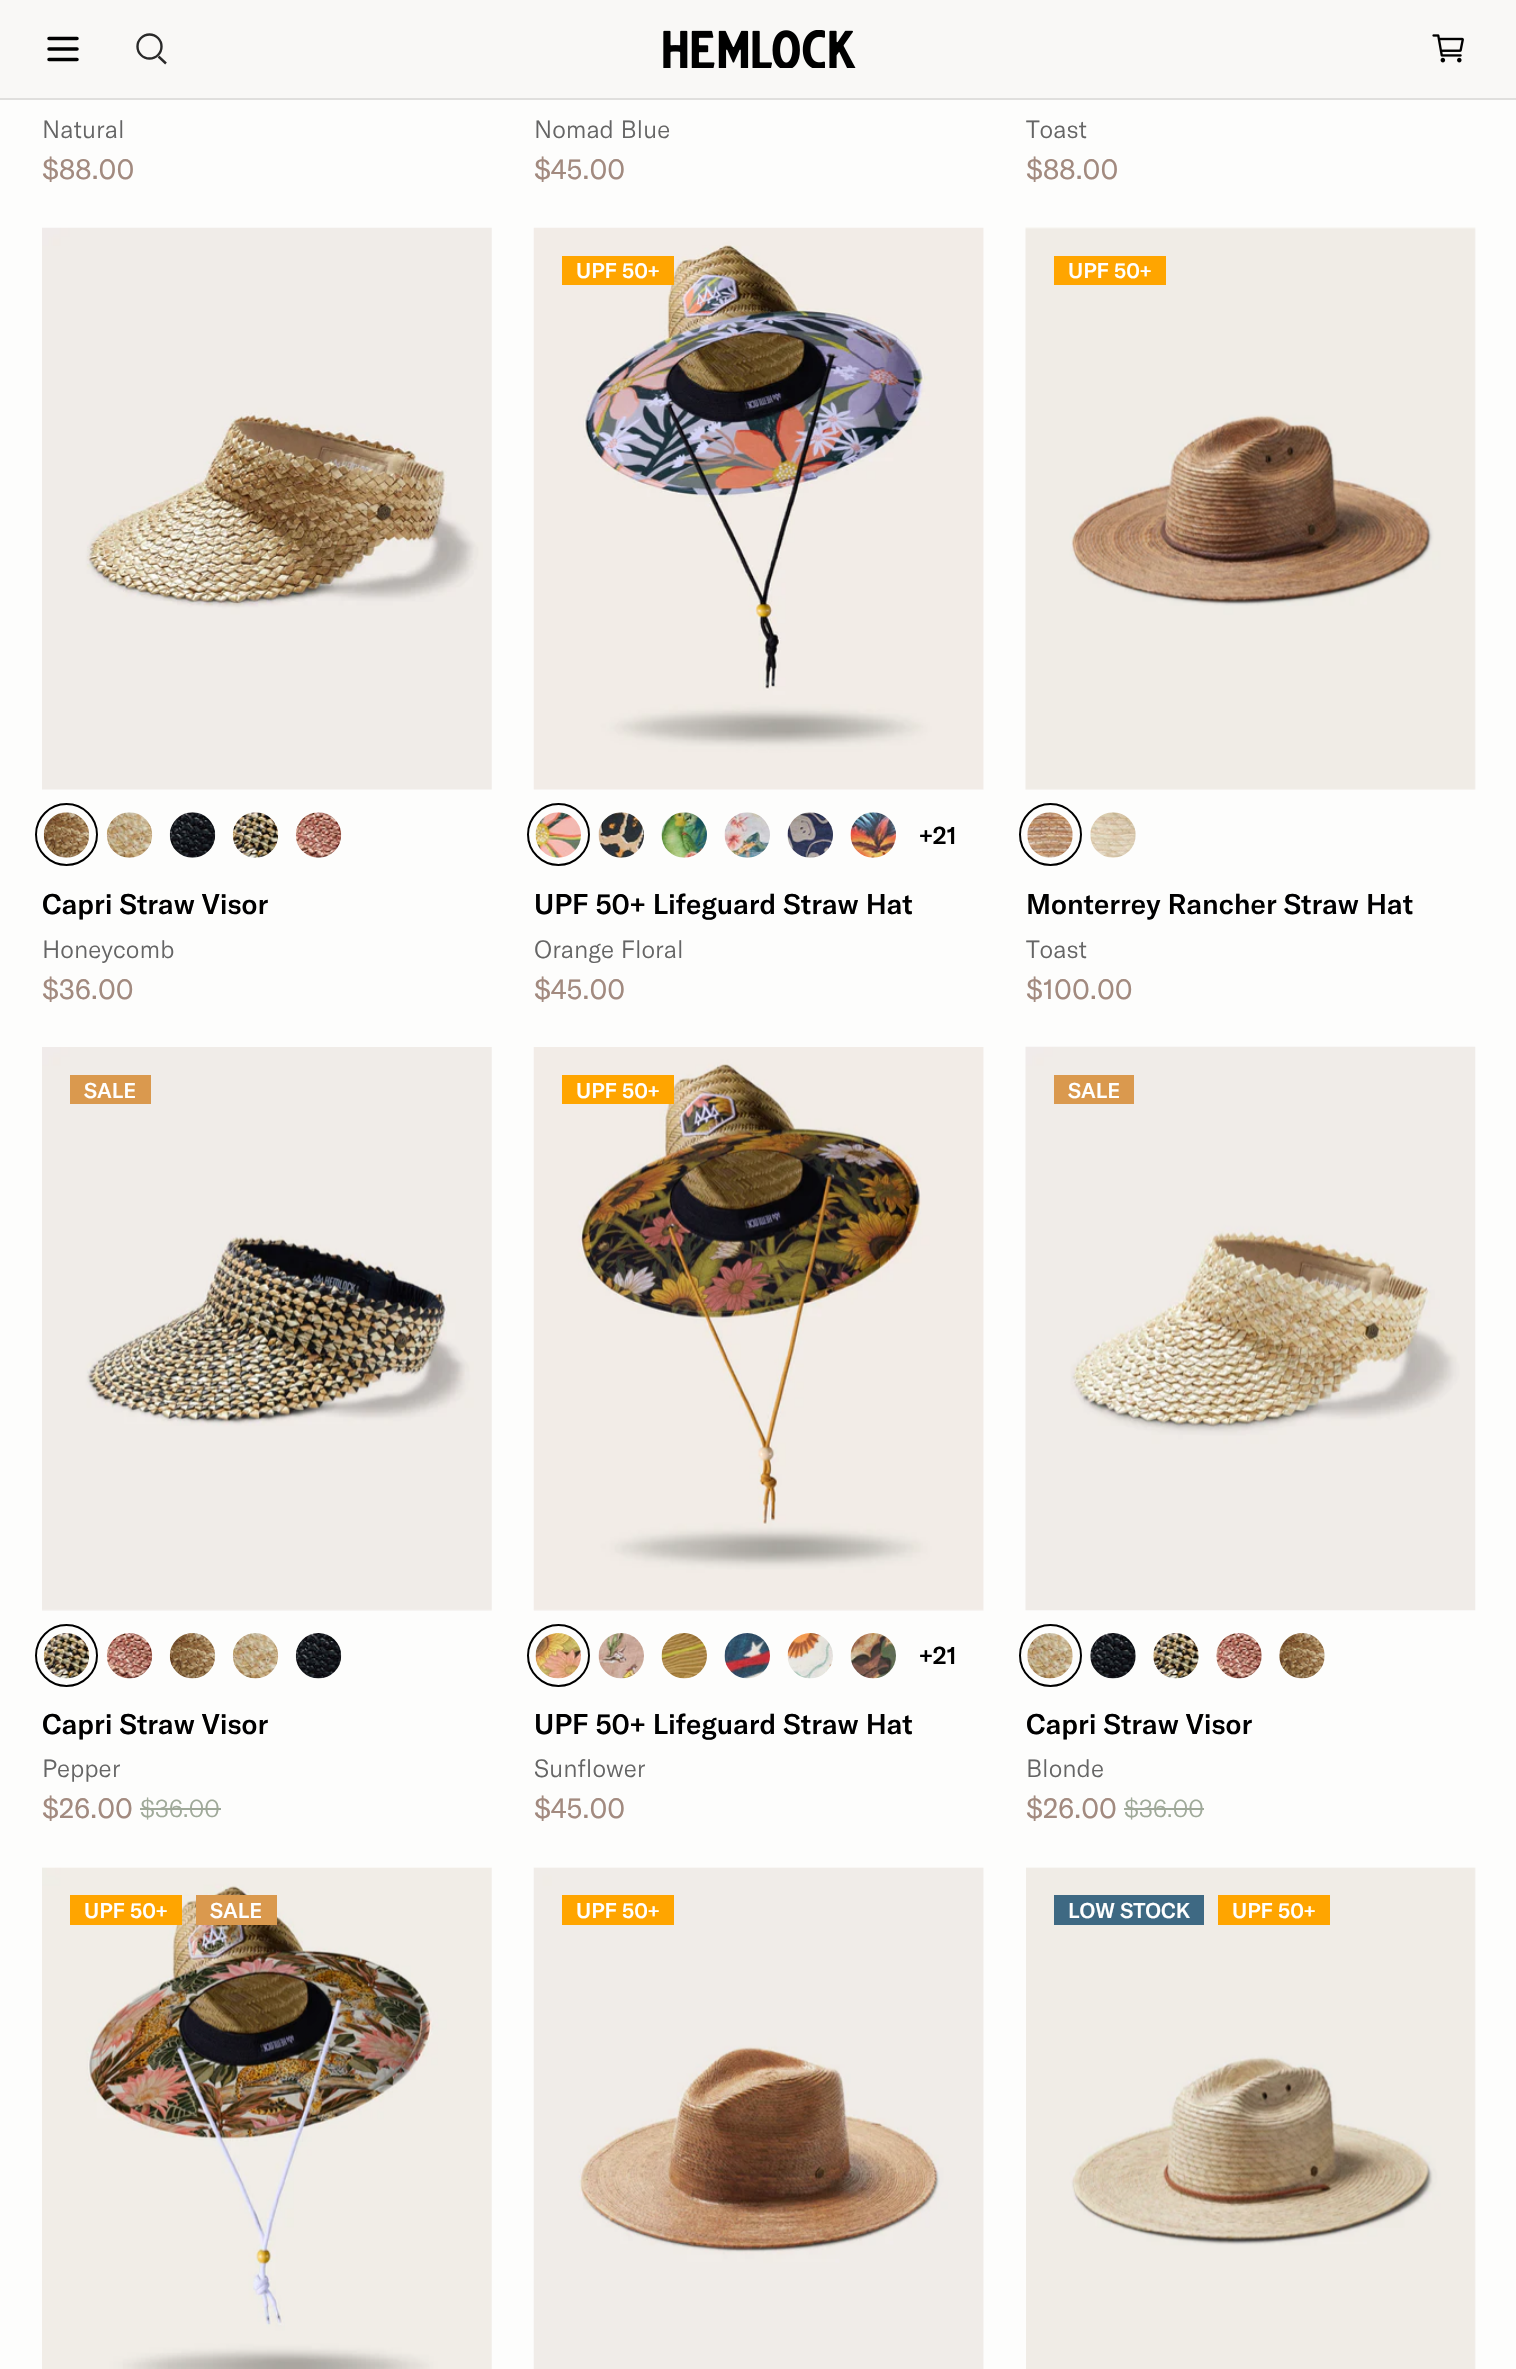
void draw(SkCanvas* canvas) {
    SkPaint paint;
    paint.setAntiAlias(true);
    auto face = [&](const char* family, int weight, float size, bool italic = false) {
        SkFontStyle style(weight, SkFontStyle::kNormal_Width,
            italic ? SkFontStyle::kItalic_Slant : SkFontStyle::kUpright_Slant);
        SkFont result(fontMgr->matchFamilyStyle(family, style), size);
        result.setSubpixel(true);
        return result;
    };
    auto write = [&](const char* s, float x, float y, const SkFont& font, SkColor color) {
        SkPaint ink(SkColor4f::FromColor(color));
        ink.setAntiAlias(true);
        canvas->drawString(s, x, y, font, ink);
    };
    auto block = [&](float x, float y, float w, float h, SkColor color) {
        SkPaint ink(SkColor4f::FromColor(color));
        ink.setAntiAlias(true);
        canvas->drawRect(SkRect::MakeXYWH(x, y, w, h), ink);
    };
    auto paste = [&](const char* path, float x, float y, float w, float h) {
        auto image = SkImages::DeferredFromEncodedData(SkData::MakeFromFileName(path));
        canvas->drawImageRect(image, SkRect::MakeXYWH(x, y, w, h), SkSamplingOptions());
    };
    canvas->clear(SkColorSetRGB(253, 253, 252));
    block(0, 0, 1516, 98, SkColorSetRGB(249, 248, 246));
    block(0, 98, 1516, 2, SkColorSetRGB(224, 223, 221));
    paint.setStyle(SkPaint::kStroke_Style);
    paint.setStrokeWidth(3.5f);
    paint.setStrokeCap(SkPaint::kRound_Cap);
    paint.setStrokeJoin(SkPaint::kRound_Join);
    paint.setColor(SK_ColorBLACK);
    canvas->drawPath(SkPathBuilder().moveTo(49, 38.5f).lineTo(77, 38.5f).moveTo(49, 49).lineTo(77, 49).moveTo(49, 59.5f).lineTo(77, 59.5f).detach(), paint);
    paint.setStrokeWidth(2.4f);
    paint.setStrokeCap(SkPaint::kButt_Cap);
    paint.setStrokeJoin(SkPaint::kMiter_Join);
    paint.setColor(SkColorSetRGB(41, 41, 41));
    canvas->drawCircle(149.5f, 46.5f, 12, paint);
    canvas->drawPath(SkPathBuilder().moveTo(158.5f, 56.5f).lineTo(166, 63.5f).detach(), paint);
    paste("pic1.png", 663, 30, 193, 38);
    paste("pic2.png", 1432, 34, 32, 29);
    auto kFont1 = face("GT America", 300, 24.5f);
    write("Natural", 42, 138, kFont1, SkColorSetRGB(101, 101, 101));
    auto kFont2 = face("GT America", 400, 28);
    write("$88.00", 42, 179, kFont2, SkColorSetRGB(162, 138, 127));
    write("Nomad Blue", 534, 138, kFont1, SkColorSetRGB(101, 101, 101));
    write("$45.00", 534, 179, kFont2, SkColorSetRGB(162, 138, 127));
    write("Toast", 1026, 138, kFont1, SkColorSetRGB(101, 101, 101));
    write("$88.00", 1026, 179, kFont2, SkColorSetRGB(162, 138, 127));
    paste("pic3.png", 42, 227, 450, 563);
    paste("pic4.png", 43, 812, 47, 46);
    paint.setStrokeWidth(2);
    paint.setColor(SK_ColorBLACK);
    canvas->drawCircle(66.5f, 834.5f, 30.5f, paint);
    paste("pic5.png", 106, 812, 47, 46);
    paste("pic6.png", 169, 812, 47, 46);
    paste("pic7.png", 232, 812, 47, 46);
    paste("pic8.png", 295, 812, 47, 46);
    auto kFont3 = face("GT America", 500, 28);
    write("Capri Straw Visor", 42, 914, kFont3, SK_ColorBLACK);
    write("Honeycomb", 42, 958, kFont1, SkColorSetRGB(101, 101, 101));
    write("$36.00", 42, 999, kFont2, SkColorSetRGB(162, 138, 127));
    block(983, 228, 1, 561, SK_ColorWHITE);
    paste("pic9.png", 533, 227, 451, 563);
    block(562, 256, 112, 29, SkColorSetRGB(255, 165, 0));
    auto kFont4 = face("GT America", 500, 21);
    write("UPF 50+", 576, 278, kFont4, SK_ColorWHITE);
    paste("pic10.png", 535, 812, 46, 46);
    canvas->drawCircle(558.5f, 834.5f, 30.5f, paint);
    paste("pic11.png", 598, 812, 46, 46);
    paste("pic12.png", 661, 812, 46, 46);
    paste("pic13.png", 724, 812, 46, 46);
    paste("pic14.png", 787, 812, 46, 46);
    paste("pic15.png", 850, 812, 46, 46);
    auto kFont5 = face("GT America", 500, 24.5f);
    write("+21", 919, 844, kFont5, SK_ColorBLACK);
    write("UPF 50+ Lifeguard Straw Hat", 534, 914, kFont3, SK_ColorBLACK);
    write("Orange Floral", 534, 958, kFont1, SkColorSetRGB(101, 101, 101));
    write("$45.00", 534, 999, kFont2, SkColorSetRGB(162, 138, 127));
    paste("pic16.png", 1025, 227, 451, 563);
    block(1054, 256, 112, 29, SkColorSetRGB(255, 165, 0));
    write("UPF 50+", 1068, 278, kFont4, SK_ColorWHITE);
    paste("pic17.png", 1027, 812, 46, 46);
    canvas->drawCircle(1050.5f, 834.5f, 30.5f, paint);
    paste("pic18.png", 1090, 812, 46, 46);
    write("Monterrey Rancher Straw Hat", 1026, 914, kFont3, SK_ColorBLACK);
    write("Toast", 1026, 958, kFont1, SkColorSetRGB(101, 101, 101));
    write("$100.00", 1026, 999, kFont2, SkColorSetRGB(162, 138, 127));
    block(42, 1047, 450, 563, SK_ColorWHITE);
    paste("pic19.png", 42, 1047, 450, 564);
    block(70, 1075, 81, 29, SkColorSetRGB(218, 153, 78));
    write("SALE", 84, 1098, kFont4, SK_ColorWHITE);
    paste("pic20.png", 43, 1633, 47, 46);
    canvas->drawCircle(66.5f, 1655.5f, 30.5f, paint);
    paste("pic21.png", 106, 1633, 47, 46);
    paste("pic22.png", 169, 1633, 47, 46);
    paste("pic23.png", 232, 1633, 47, 46);
    paste("pic24.png", 295, 1633, 47, 46);
    write("Capri Straw Visor", 42, 1734, kFont3, SK_ColorBLACK);
    write("Pepper", 42, 1777, kFont1, SkColorSetRGB(101, 101, 101));
    write("$26.00", 42, 1818, kFont2, SkColorSetRGB(162, 138, 127));
    write("$36.00", 140, 1817, kFont1, SkColorSetRGB(159, 169, 153));
    block(140, 1808, 81, 2, SkColorSetRGB(159, 169, 153));
    block(534, 1047, 450, 563, SK_ColorWHITE);
    paste("pic25.png", 533, 1047, 451, 564);
    block(562, 1075, 112, 29, SkColorSetRGB(255, 165, 0));
    write("UPF 50+", 576, 1098, kFont4, SK_ColorWHITE);
    paste("pic26.png", 535, 1633, 46, 46);
    canvas->drawCircle(558.5f, 1655.5f, 30.5f, paint);
    paste("pic27.png", 598, 1633, 46, 46);
    paste("pic28.png", 661, 1633, 46, 46);
    paste("pic29.png", 724, 1633, 46, 46);
    paste("pic30.png", 787, 1633, 46, 46);
    paste("pic31.png", 850, 1633, 46, 46);
    write("+21", 919, 1664, kFont5, SK_ColorBLACK);
    write("UPF 50+ Lifeguard Straw Hat", 534, 1734, kFont3, SK_ColorBLACK);
    write("Sunflower", 534, 1777, kFont1, SkColorSetRGB(101, 101, 101));
    write("$45.00", 534, 1818, kFont2, SkColorSetRGB(162, 138, 127));
    paste("pic32.png", 1025, 1046, 451, 565);
    block(1054, 1075, 80, 29, SkColorSetRGB(218, 153, 78));
    write("SALE", 1068, 1098, kFont4, SK_ColorWHITE);
    paste("pic33.png", 1027, 1633, 46, 46);
    canvas->drawCircle(1050.5f, 1655.5f, 30.5f, paint);
    paste("pic34.png", 1090, 1633, 46, 46);
    paste("pic35.png", 1153, 1633, 46, 46);
    paste("pic36.png", 1216, 1633, 46, 46);
    paste("pic37.png", 1279, 1633, 46, 46);
    write("Capri Straw Visor", 1026, 1734, kFont3, SK_ColorBLACK);
    write("Blonde", 1026, 1777, kFont1, SkColorSetRGB(101, 101, 101));
    write("$26.00", 1026, 1818, kFont2, SkColorSetRGB(162, 138, 127));
    write("$36.00", 1124, 1817, kFont1, SkColorSetRGB(159, 169, 153));
    block(1124, 1808, 80, 2, SkColorSetRGB(159, 169, 153));
    block(42, 1867, 450, 502, SK_ColorWHITE);
    paste("pic38.png", 42, 1867, 450, 502);
    block(70, 1895, 112, 30, SkColorSetRGB(255, 165, 0));
    write("UPF 50+", 84, 1918, kFont4, SK_ColorWHITE);
    block(196, 1895, 81, 30, SkColorSetRGB(218, 153, 78));
    write("SALE", 210, 1918, kFont4, SK_ColorWHITE);
    block(534, 1867, 450, 502, SK_ColorWHITE);
    paste("pic39.png", 533, 1867, 451, 502);
    block(562, 1895, 112, 30, SkColorSetRGB(255, 165, 0));
    write("UPF 50+", 576, 1918, kFont4, SK_ColorWHITE);
    block(1026, 1867, 449, 502, SK_ColorWHITE);
    paste("pic40.png", 1026, 1867, 450, 502);
    block(1054, 1895, 150, 30, SkColorSetRGB(62, 105, 131));
    write("LOW STOCK", 1068, 1918, kFont4, SK_ColorWHITE);
    block(1218, 1895, 112, 30, SkColorSetRGB(255, 165, 0));
    write("UPF 50+", 1232, 1918, kFont4, SK_ColorWHITE);
}
